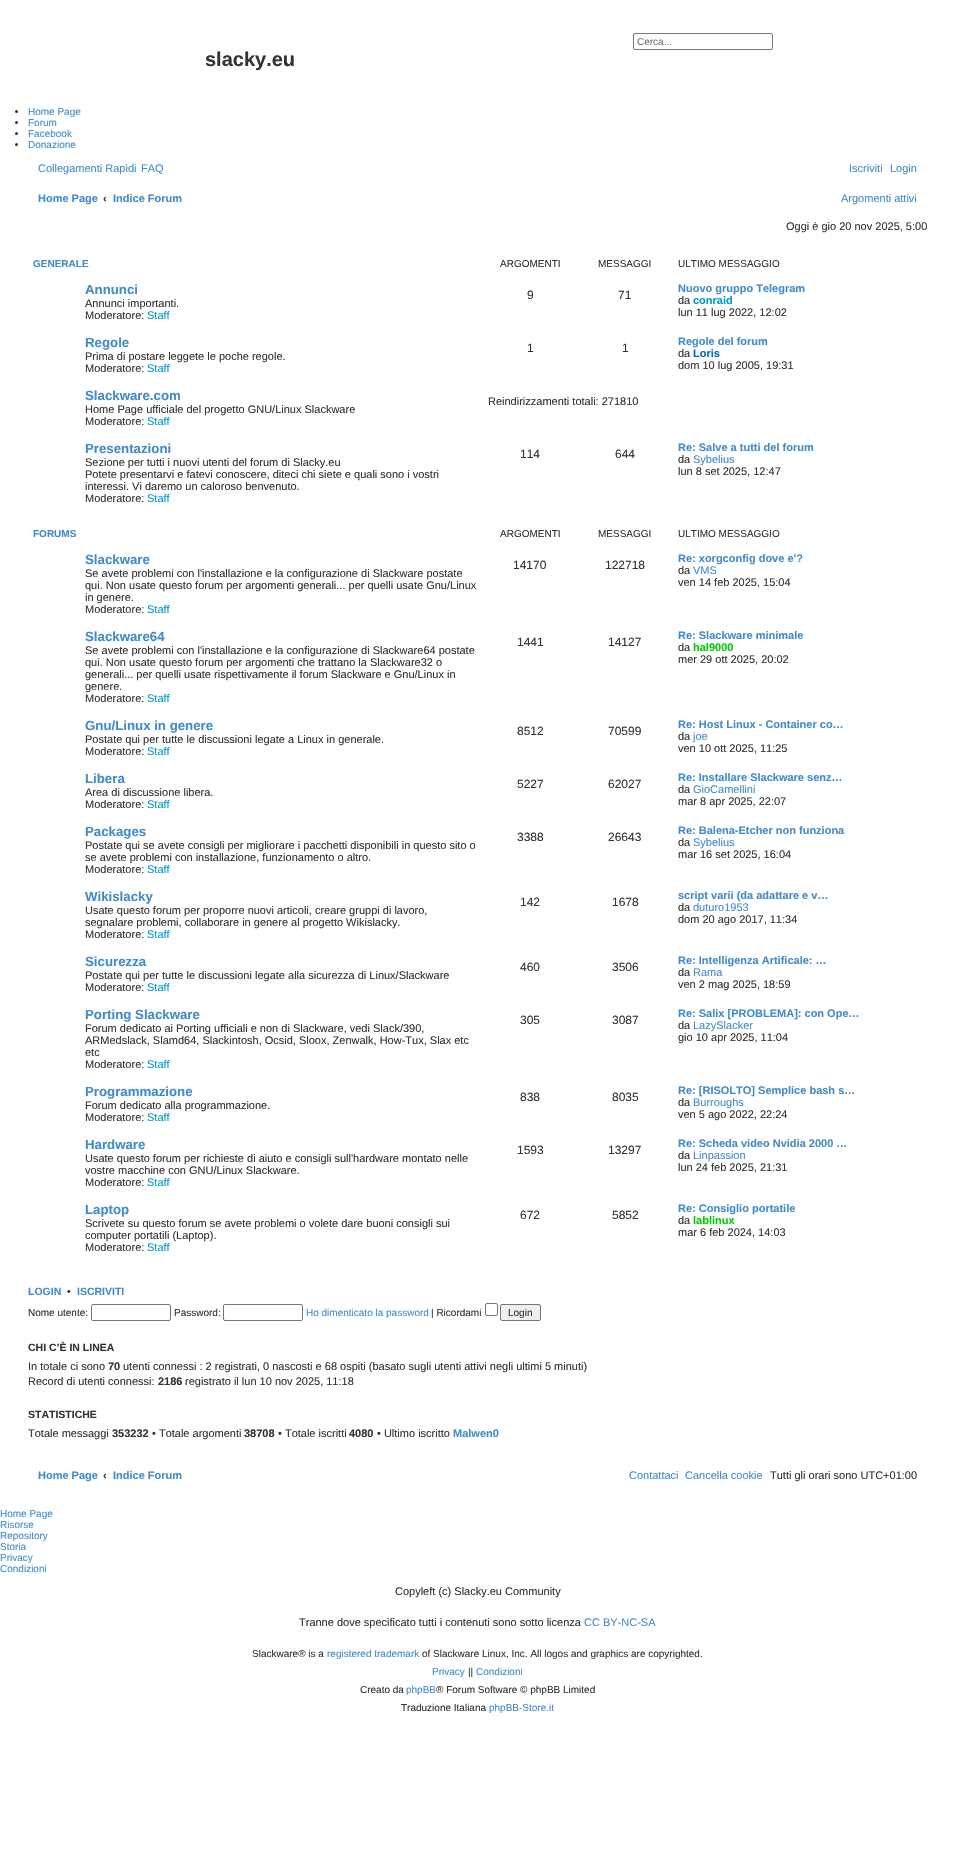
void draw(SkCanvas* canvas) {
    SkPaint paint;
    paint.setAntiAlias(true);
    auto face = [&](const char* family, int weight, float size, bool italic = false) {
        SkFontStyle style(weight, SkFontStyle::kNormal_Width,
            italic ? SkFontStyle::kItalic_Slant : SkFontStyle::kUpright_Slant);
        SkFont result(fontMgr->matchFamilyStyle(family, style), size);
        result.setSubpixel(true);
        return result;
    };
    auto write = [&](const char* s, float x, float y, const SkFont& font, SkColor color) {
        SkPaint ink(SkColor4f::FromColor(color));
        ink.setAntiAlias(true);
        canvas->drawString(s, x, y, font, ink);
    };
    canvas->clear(SK_ColorWHITE);
    paint.setStyle(SkPaint::kStroke_Style);
    paint.setStrokeWidth(1);
    paint.setColor(SkColorSetRGB(118, 118, 118));
    canvas->drawRoundRect(SkRect::MakeXYWH(633.5f, 33.5f, 139, 16), 1.5f, 1.5f, paint);
    auto kFont1 = face("Liberation Sans", 400, 10);
    write("Cerca...", 637, 45, kFont1, SkColorSetRGB(117, 117, 117));
    auto kFont2 = face("Liberation Sans", 700, 20);
    write("slacky.eu", 205, 66, kFont2, SkColorSetRGB(51, 51, 51));
    paint.setStyle(SkPaint::kFill_Style);
    paint.setColor(SkColorSetRGB(51, 51, 51));
    canvas->drawCircle(16.5f, 111.5f, 1.5f, paint);
    write("Home Page", 28, 115, kFont1, SkColorSetRGB(66, 139, 202));
    canvas->drawCircle(16.5f, 122.5f, 1.5f, paint);
    write("Forum", 28, 126, kFont1, SkColorSetRGB(66, 139, 202));
    canvas->drawCircle(16.5f, 133.5f, 1.5f, paint);
    write("Facebook", 28, 137, kFont1, SkColorSetRGB(66, 139, 202));
    canvas->drawCircle(16.5f, 144.5f, 1.5f, paint);
    write("Donazione", 28, 148, kFont1, SkColorSetRGB(66, 139, 202));
    auto kFont3 = face("Liberation Sans", 400, 11);
    write("Collegamenti Rapidi", 38, 172, kFont3, SkColorSetRGB(66, 139, 202));
    write("FAQ", 141, 172, kFont3, SkColorSetRGB(66, 139, 202));
    write("Iscriviti", 849, 172, kFont3, SkColorSetRGB(66, 139, 202));
    write("Login", 890, 172, kFont3, SkColorSetRGB(66, 139, 202));
    auto kFont4 = face("Liberation Sans", 700, 11);
    write("Home Page", 38, 202, kFont4, SkColorSetRGB(66, 139, 202));
    write("‹", 103, 202, kFont4, SkColorSetRGB(51, 51, 51));
    write("Indice Forum", 113, 202, kFont4, SkColorSetRGB(66, 139, 202));
    write("Argomenti attivi", 841, 202, kFont3, SkColorSetRGB(66, 139, 202));
    write("Oggi è gio 20 nov 2025, 5:00", 786, 230, kFont3, SkColorSetRGB(51, 51, 51));
    auto kFont5 = face("Liberation Sans", 700, 10);
    write("GENERALE", 33, 267, kFont5, SkColorSetRGB(66, 139, 202));
    write("ARGOMENTI", 500, 267, kFont1, SkColorSetRGB(51, 51, 51));
    write("MESSAGGI", 598, 267, kFont1, SkColorSetRGB(51, 51, 51));
    write("ULTIMO MESSAGGIO", 678, 267, kFont1, SkColorSetRGB(51, 51, 51));
    auto kFont6 = face("Liberation Sans", 700, 13.25f);
    write("Annunci", 85, 294, kFont6, SkColorSetRGB(66, 139, 202));
    write("Annunci importanti.", 85, 307, kFont3, SkColorSetRGB(51, 51, 51));
    write("Moderatore:", 85, 319, kFont3, SkColorSetRGB(51, 51, 51));
    write("Staff", 147, 319, kFont3, SkColorSetRGB(0, 153, 204));
    auto kFont7 = face("Liberation Sans", 400, 12);
    write("9", 527, 299, kFont7, SkColorSetRGB(51, 51, 51));
    write("71", 618, 299, kFont7, SkColorSetRGB(51, 51, 51));
    write("Nuovo gruppo Telegram", 678, 292, kFont4, SkColorSetRGB(66, 139, 202));
    write("da", 678, 304, kFont3, SkColorSetRGB(51, 51, 51));
    write("conraid", 693, 304, kFont4, SkColorSetRGB(0, 153, 204));
    write("lun 11 lug 2022, 12:02", 678, 316, kFont3, SkColorSetRGB(51, 51, 51));
    write("Regole", 85, 347, kFont6, SkColorSetRGB(66, 139, 202));
    write("Prima di postare leggete le poche regole.", 85, 360, kFont3, SkColorSetRGB(51, 51, 51));
    write("Moderatore:", 85, 372, kFont3, SkColorSetRGB(51, 51, 51));
    write("Staff", 147, 372, kFont3, SkColorSetRGB(0, 153, 204));
    write("1", 527, 352, kFont7, SkColorSetRGB(51, 51, 51));
    write("1", 622, 352, kFont7, SkColorSetRGB(51, 51, 51));
    write("Regole del forum", 678, 345, kFont4, SkColorSetRGB(66, 139, 202));
    write("da", 678, 357, kFont3, SkColorSetRGB(51, 51, 51));
    write("Loris", 693, 357, kFont4, SkColorSetRGB(0, 102, 204));
    write("dom 10 lug 2005, 19:31", 678, 369, kFont3, SkColorSetRGB(51, 51, 51));
    write("Slackware.com", 85, 400, kFont6, SkColorSetRGB(66, 139, 202));
    write("Home Page ufficiale del progetto GNU/Linux Slackware", 85, 413, kFont3, SkColorSetRGB(51, 51, 51));
    write("Moderatore:", 85, 425, kFont3, SkColorSetRGB(51, 51, 51));
    write("Staff", 147, 425, kFont3, SkColorSetRGB(0, 153, 204));
    write("Reindirizzamenti totali: 271810", 488, 405, kFont3, SkColorSetRGB(51, 51, 51));
    write("Presentazioni", 85, 453, kFont6, SkColorSetRGB(66, 139, 202));
    write("Sezione per tutti i nuovi utenti del forum di Slacky.eu", 85, 466, kFont3, SkColorSetRGB(51, 51, 51));
    write("Potete presentarvi e fatevi conoscere, diteci chi siete e quali sono i vostri", 85, 478, kFont3, SkColorSetRGB(51, 51, 51));
    write("interessi. Vi daremo un caloroso benvenuto.", 85, 490, kFont3, SkColorSetRGB(51, 51, 51));
    write("Moderatore:", 85, 502, kFont3, SkColorSetRGB(51, 51, 51));
    write("Staff", 147, 502, kFont3, SkColorSetRGB(0, 153, 204));
    write("114", 520, 458, kFont7, SkColorSetRGB(51, 51, 51));
    write("644", 615, 458, kFont7, SkColorSetRGB(51, 51, 51));
    write("Re: Salve a tutti del forum", 678, 451, kFont4, SkColorSetRGB(66, 139, 202));
    write("da", 678, 463, kFont3, SkColorSetRGB(51, 51, 51));
    write("Sybelius", 693, 463, kFont3, SkColorSetRGB(66, 139, 202));
    write("lun 8 set 2025, 12:47", 678, 475, kFont3, SkColorSetRGB(51, 51, 51));
    write("FORUMS", 33, 537, kFont5, SkColorSetRGB(66, 139, 202));
    write("ARGOMENTI", 500, 537, kFont1, SkColorSetRGB(51, 51, 51));
    write("MESSAGGI", 598, 537, kFont1, SkColorSetRGB(51, 51, 51));
    write("ULTIMO MESSAGGIO", 678, 537, kFont1, SkColorSetRGB(51, 51, 51));
    write("Slackware", 85, 564, kFont6, SkColorSetRGB(66, 139, 202));
    write("Se avete problemi con l'installazione e la configurazione di Slackware postate", 85, 577, kFont3, SkColorSetRGB(51, 51, 51));
    write("qui. Non usate questo forum per argomenti generali... per quelli usate Gnu/Linux", 85, 589, kFont3, SkColorSetRGB(51, 51, 51));
    write("in genere.", 85, 601, kFont3, SkColorSetRGB(51, 51, 51));
    write("Moderatore:", 85, 613, kFont3, SkColorSetRGB(51, 51, 51));
    write("Staff", 147, 613, kFont3, SkColorSetRGB(0, 153, 204));
    write("14170", 513, 569, kFont7, SkColorSetRGB(51, 51, 51));
    write("122718", 605, 569, kFont7, SkColorSetRGB(51, 51, 51));
    write("Re: xorgconfig dove e'?", 678, 562, kFont4, SkColorSetRGB(66, 139, 202));
    write("da", 678, 574, kFont3, SkColorSetRGB(51, 51, 51));
    write("VMS", 693, 574, kFont3, SkColorSetRGB(66, 139, 202));
    write("ven 14 feb 2025, 15:04", 678, 586, kFont3, SkColorSetRGB(51, 51, 51));
    write("Slackware64", 85, 641, kFont6, SkColorSetRGB(66, 139, 202));
    write("Se avete problemi con l'installazione e la configurazione di Slackware64 postate", 85, 654, kFont3, SkColorSetRGB(51, 51, 51));
    write("qui. Non usate questo forum per argomenti che trattano la Slackware32 o", 85, 666, kFont3, SkColorSetRGB(51, 51, 51));
    write("generali... per quelli usate rispettivamente il forum Slackware e Gnu/Linux in", 85, 678, kFont3, SkColorSetRGB(51, 51, 51));
    write("genere.", 85, 690, kFont3, SkColorSetRGB(51, 51, 51));
    write("Moderatore:", 85, 702, kFont3, SkColorSetRGB(51, 51, 51));
    write("Staff", 147, 702, kFont3, SkColorSetRGB(0, 153, 204));
    write("1441", 517, 646, kFont7, SkColorSetRGB(51, 51, 51));
    write("14127", 608, 646, kFont7, SkColorSetRGB(51, 51, 51));
    write("Re: Slackware minimale", 678, 639, kFont4, SkColorSetRGB(66, 139, 202));
    write("da", 678, 651, kFont3, SkColorSetRGB(51, 51, 51));
    write("hal9000", 693, 651, kFont4, SkColorSetRGB(0, 204, 0));
    write("mer 29 ott 2025, 20:02", 678, 663, kFont3, SkColorSetRGB(51, 51, 51));
    write("Gnu/Linux in genere", 85, 730, kFont6, SkColorSetRGB(66, 139, 202));
    write("Postate qui per tutte le discussioni legate a Linux in generale.", 85, 743, kFont3, SkColorSetRGB(51, 51, 51));
    write("Moderatore:", 85, 755, kFont3, SkColorSetRGB(51, 51, 51));
    write("Staff", 147, 755, kFont3, SkColorSetRGB(0, 153, 204));
    write("8512", 517, 735, kFont7, SkColorSetRGB(51, 51, 51));
    write("70599", 608, 735, kFont7, SkColorSetRGB(51, 51, 51));
    write("Re: Host Linux - Container co…", 678, 728, kFont4, SkColorSetRGB(66, 139, 202));
    write("da", 678, 740, kFont3, SkColorSetRGB(51, 51, 51));
    write("joe", 693, 740, kFont3, SkColorSetRGB(66, 139, 202));
    write("ven 10 ott 2025, 11:25", 678, 752, kFont3, SkColorSetRGB(51, 51, 51));
    write("Libera", 85, 783, kFont6, SkColorSetRGB(66, 139, 202));
    write("Area di discussione libera.", 85, 796, kFont3, SkColorSetRGB(51, 51, 51));
    write("Moderatore:", 85, 808, kFont3, SkColorSetRGB(51, 51, 51));
    write("Staff", 147, 808, kFont3, SkColorSetRGB(0, 153, 204));
    write("5227", 517, 788, kFont7, SkColorSetRGB(51, 51, 51));
    write("62027", 608, 788, kFont7, SkColorSetRGB(51, 51, 51));
    write("Re: Installare Slackware senz…", 678, 781, kFont4, SkColorSetRGB(66, 139, 202));
    write("da", 678, 793, kFont3, SkColorSetRGB(51, 51, 51));
    write("GioCamellini", 693, 793, kFont3, SkColorSetRGB(66, 139, 202));
    write("mar 8 apr 2025, 22:07", 678, 805, kFont3, SkColorSetRGB(51, 51, 51));
    write("Packages", 85, 836, kFont6, SkColorSetRGB(66, 139, 202));
    write("Postate qui se avete consigli per migliorare i pacchetti disponibili in questo sito o", 85, 849, kFont3, SkColorSetRGB(51, 51, 51));
    write("se avete problemi con installazione, funzionamento o altro.", 85, 861, kFont3, SkColorSetRGB(51, 51, 51));
    write("Moderatore:", 85, 873, kFont3, SkColorSetRGB(51, 51, 51));
    write("Staff", 147, 873, kFont3, SkColorSetRGB(0, 153, 204));
    write("3388", 517, 841, kFont7, SkColorSetRGB(51, 51, 51));
    write("26643", 608, 841, kFont7, SkColorSetRGB(51, 51, 51));
    write("Re: Balena-Etcher non funziona", 678, 834, kFont4, SkColorSetRGB(66, 139, 202));
    write("da", 678, 846, kFont3, SkColorSetRGB(51, 51, 51));
    write("Sybelius", 693, 846, kFont3, SkColorSetRGB(66, 139, 202));
    write("mar 16 set 2025, 16:04", 678, 858, kFont3, SkColorSetRGB(51, 51, 51));
    write("Wikislacky", 85, 901, kFont6, SkColorSetRGB(66, 139, 202));
    write("Usate questo forum per proporre nuovi articoli, creare gruppi di lavoro,", 85, 914, kFont3, SkColorSetRGB(51, 51, 51));
    write("segnalare problemi, collaborare in genere al progetto Wikislacky.", 85, 926, kFont3, SkColorSetRGB(51, 51, 51));
    write("Moderatore:", 85, 938, kFont3, SkColorSetRGB(51, 51, 51));
    write("Staff", 147, 938, kFont3, SkColorSetRGB(0, 153, 204));
    write("142", 520, 906, kFont7, SkColorSetRGB(51, 51, 51));
    write("1678", 612, 906, kFont7, SkColorSetRGB(51, 51, 51));
    write("script varii (da adattare e v…", 678, 899, kFont4, SkColorSetRGB(66, 139, 202));
    write("da", 678, 911, kFont3, SkColorSetRGB(51, 51, 51));
    write("duturo1953", 693, 911, kFont3, SkColorSetRGB(66, 139, 202));
    write("dom 20 ago 2017, 11:34", 678, 923, kFont3, SkColorSetRGB(51, 51, 51));
    write("Sicurezza", 85, 966, kFont6, SkColorSetRGB(66, 139, 202));
    write("Postate qui per tutte le discussioni legate alla sicurezza di Linux/Slackware", 85, 979, kFont3, SkColorSetRGB(51, 51, 51));
    write("Moderatore:", 85, 991, kFont3, SkColorSetRGB(51, 51, 51));
    write("Staff", 147, 991, kFont3, SkColorSetRGB(0, 153, 204));
    write("460", 520, 971, kFont7, SkColorSetRGB(51, 51, 51));
    write("3506", 612, 971, kFont7, SkColorSetRGB(51, 51, 51));
    write("Re: Intelligenza Artificale: …", 678, 964, kFont4, SkColorSetRGB(66, 139, 202));
    write("da", 678, 976, kFont3, SkColorSetRGB(51, 51, 51));
    write("Rama", 693, 976, kFont3, SkColorSetRGB(66, 139, 202));
    write("ven 2 mag 2025, 18:59", 678, 988, kFont3, SkColorSetRGB(51, 51, 51));
    write("Porting Slackware", 85, 1019, kFont6, SkColorSetRGB(66, 139, 202));
    write("Forum dedicato ai Porting ufficiali e non di Slackware, vedi Slack/390,", 85, 1032, kFont3, SkColorSetRGB(51, 51, 51));
    write("ARMedslack, Slamd64, Slackintosh, Ocsid, Sloox, Zenwalk, How-Tux, Slax etc", 85, 1044, kFont3, SkColorSetRGB(51, 51, 51));
    write("etc", 85, 1056, kFont3, SkColorSetRGB(51, 51, 51));
    write("Moderatore:", 85, 1068, kFont3, SkColorSetRGB(51, 51, 51));
    write("Staff", 147, 1068, kFont3, SkColorSetRGB(0, 153, 204));
    write("305", 520, 1024, kFont7, SkColorSetRGB(51, 51, 51));
    write("3087", 612, 1024, kFont7, SkColorSetRGB(51, 51, 51));
    write("Re: Salix [PROBLEMA]: con Ope…", 678, 1017, kFont4, SkColorSetRGB(66, 139, 202));
    write("da", 678, 1029, kFont3, SkColorSetRGB(51, 51, 51));
    write("LazySlacker", 693, 1029, kFont3, SkColorSetRGB(66, 139, 202));
    write("gio 10 apr 2025, 11:04", 678, 1041, kFont3, SkColorSetRGB(51, 51, 51));
    write("Programmazione", 85, 1096, kFont6, SkColorSetRGB(66, 139, 202));
    write("Forum dedicato alla programmazione.", 85, 1109, kFont3, SkColorSetRGB(51, 51, 51));
    write("Moderatore:", 85, 1121, kFont3, SkColorSetRGB(51, 51, 51));
    write("Staff", 147, 1121, kFont3, SkColorSetRGB(0, 153, 204));
    write("838", 520, 1101, kFont7, SkColorSetRGB(51, 51, 51));
    write("8035", 612, 1101, kFont7, SkColorSetRGB(51, 51, 51));
    write("Re: [RISOLTO] Semplice bash s…", 678, 1094, kFont4, SkColorSetRGB(66, 139, 202));
    write("da", 678, 1106, kFont3, SkColorSetRGB(51, 51, 51));
    write("Burroughs", 693, 1106, kFont3, SkColorSetRGB(66, 139, 202));
    write("ven 5 ago 2022, 22:24", 678, 1118, kFont3, SkColorSetRGB(51, 51, 51));
    write("Hardware", 85, 1149, kFont6, SkColorSetRGB(66, 139, 202));
    write("Usate questo forum per richieste di aiuto e consigli sull'hardware montato nelle", 85, 1162, kFont3, SkColorSetRGB(51, 51, 51));
    write("vostre macchine con GNU/Linux Slackware.", 85, 1174, kFont3, SkColorSetRGB(51, 51, 51));
    write("Moderatore:", 85, 1186, kFont3, SkColorSetRGB(51, 51, 51));
    write("Staff", 147, 1186, kFont3, SkColorSetRGB(0, 153, 204));
    write("1593", 517, 1154, kFont7, SkColorSetRGB(51, 51, 51));
    write("13297", 608, 1154, kFont7, SkColorSetRGB(51, 51, 51));
    write("Re: Scheda video Nvidia 2000 …", 678, 1147, kFont4, SkColorSetRGB(66, 139, 202));
    write("da", 678, 1159, kFont3, SkColorSetRGB(51, 51, 51));
    write("Linpassion", 693, 1159, kFont3, SkColorSetRGB(66, 139, 202));
    write("lun 24 feb 2025, 21:31", 678, 1171, kFont3, SkColorSetRGB(51, 51, 51));
    write("Laptop", 85, 1214, kFont6, SkColorSetRGB(66, 139, 202));
    write("Scrivete su questo forum se avete problemi o volete dare buoni consigli sui", 85, 1227, kFont3, SkColorSetRGB(51, 51, 51));
    write("computer portatili (Laptop).", 85, 1239, kFont3, SkColorSetRGB(51, 51, 51));
    write("Moderatore:", 85, 1251, kFont3, SkColorSetRGB(51, 51, 51));
    write("Staff", 147, 1251, kFont3, SkColorSetRGB(0, 153, 204));
    write("672", 520, 1219, kFont7, SkColorSetRGB(51, 51, 51));
    write("5852", 612, 1219, kFont7, SkColorSetRGB(51, 51, 51));
    write("Re: Consiglio portatile", 678, 1212, kFont4, SkColorSetRGB(66, 139, 202));
    write("da", 678, 1224, kFont3, SkColorSetRGB(51, 51, 51));
    write("lablinux", 693, 1224, kFont4, SkColorSetRGB(0, 204, 0));
    write("mar 6 feb 2024, 14:03", 678, 1236, kFont3, SkColorSetRGB(51, 51, 51));
    auto kFont8 = face("Liberation Sans", 700, 10.5f);
    write("LOGIN", 28, 1295, kFont8, SkColorSetRGB(66, 139, 202));
    write("•", 67, 1295, kFont8, SkColorSetRGB(51, 51, 51));
    write("ISCRIVITI", 77, 1295, kFont8, SkColorSetRGB(66, 139, 202));
    write("Nome utente:", 28, 1316, kFont1, SkColorSetRGB(51, 51, 51));
    paint.setStyle(SkPaint::kStroke_Style);
    paint.setColor(SkColorSetRGB(118, 118, 118));
    canvas->drawRoundRect(SkRect::MakeXYWH(91.5f, 1304.5f, 79, 16), 1.5f, 1.5f, paint);
    write("Password:", 174, 1316, kFont1, SkColorSetRGB(51, 51, 51));
    canvas->drawRoundRect(SkRect::MakeXYWH(223.5f, 1304.5f, 79, 16), 1.5f, 1.5f, paint);
    write("Ho dimenticato la password", 306, 1316, kFont1, SkColorSetRGB(66, 139, 202));
    write("| Ricordami", 431, 1316, kFont1, SkColorSetRGB(51, 51, 51));
    canvas->drawRoundRect(SkRect::MakeXYWH(485.5f, 1303.5f, 12, 12), 1.5f, 1.5f, paint);
    paint.setStyle(SkPaint::kFill_Style);
    paint.setColor(SkColorSetRGB(239, 239, 239));
    canvas->drawRoundRect(SkRect::MakeXYWH(500.5f, 1304.5f, 40, 16), 1.5f, 1.5f, paint);
    paint.setStyle(SkPaint::kStroke_Style);
    paint.setColor(SkColorSetRGB(118, 118, 118));
    canvas->drawRoundRect(SkRect::MakeXYWH(500.5f, 1304.5f, 40, 16), 1.5f, 1.5f, paint);
    write("Login", 508, 1316, kFont1, SkColorSetRGB(51, 51, 51));
    write("CHI C’È IN LINEA", 28, 1351, kFont8, SkColorSetRGB(51, 51, 51));
    write("In totale ci sono", 28, 1370, kFont3, SkColorSetRGB(51, 51, 51));
    write("70", 108, 1370, kFont4, SkColorSetRGB(51, 51, 51));
    write("utenti connessi : 2 registrati, 0 nascosti e 68 ospiti (basato sugli utenti attivi negli ultimi 5 minuti)", 123, 1370, kFont3, SkColorSetRGB(51, 51, 51));
    write("Record di utenti connessi:", 28, 1385, kFont3, SkColorSetRGB(51, 51, 51));
    write("2186", 158, 1385, kFont4, SkColorSetRGB(51, 51, 51));
    write("registrato il lun 10 nov 2025, 11:18", 185, 1385, kFont3, SkColorSetRGB(51, 51, 51));
    write("STATISTICHE", 28, 1418, kFont8, SkColorSetRGB(51, 51, 51));
    write("Totale messaggi", 28, 1437, kFont3, SkColorSetRGB(51, 51, 51));
    write("353232", 112, 1437, kFont4, SkColorSetRGB(51, 51, 51));
    write("• Totale argomenti", 152, 1437, kFont3, SkColorSetRGB(51, 51, 51));
    write("38708", 244, 1437, kFont4, SkColorSetRGB(51, 51, 51));
    write("• Totale iscritti", 278, 1437, kFont3, SkColorSetRGB(51, 51, 51));
    write("4080", 349, 1437, kFont4, SkColorSetRGB(51, 51, 51));
    write("• Ultimo iscritto", 377, 1437, kFont3, SkColorSetRGB(51, 51, 51));
    write("Malwen0", 453, 1437, kFont4, SkColorSetRGB(66, 139, 202));
    write("Home Page", 38, 1479, kFont4, SkColorSetRGB(66, 139, 202));
    write("‹", 103, 1479, kFont4, SkColorSetRGB(51, 51, 51));
    write("Indice Forum", 113, 1479, kFont4, SkColorSetRGB(66, 139, 202));
    write("Contattaci", 629, 1479, kFont3, SkColorSetRGB(66, 139, 202));
    write("Cancella cookie", 685, 1479, kFont3, SkColorSetRGB(66, 139, 202));
    write("Tutti gli orari sono UTC+01:00", 770, 1479, kFont3, SkColorSetRGB(51, 51, 51));
    write("Home Page", 0, 1517, kFont1, SkColorSetRGB(66, 139, 202));
    write("Risorse", 0, 1528, kFont1, SkColorSetRGB(66, 139, 202));
    write("Repository", 0, 1539, kFont1, SkColorSetRGB(66, 139, 202));
    write("Storia", 0, 1550, kFont1, SkColorSetRGB(66, 139, 202));
    write("Privacy", 0, 1561, kFont1, SkColorSetRGB(66, 139, 202));
    write("Condizioni", 0, 1572, kFont1, SkColorSetRGB(66, 139, 202));
    write("Copyleft (c) Slacky.eu Community", 395, 1595, kFont3, SkColorSetRGB(51, 51, 51));
    write("Tranne dove specificato tutti i contenuti sono sotto licenza", 299, 1626, kFont3, SkColorSetRGB(51, 51, 51));
    write("CC BY-NC-SA", 584, 1626, kFont3, SkColorSetRGB(66, 139, 202));
    write("Slackware® is a", 252, 1657, kFont1, SkColorSetRGB(51, 51, 51));
    write("registered trademark", 327, 1657, kFont1, SkColorSetRGB(66, 139, 202));
    write("of Slackware Linux, Inc. All logos and graphics are copyrighted.", 422, 1657, kFont1, SkColorSetRGB(51, 51, 51));
    write("Privacy", 432, 1675, kFont1, SkColorSetRGB(66, 139, 202));
    write("||", 468, 1675, kFont1, SkColorSetRGB(51, 51, 51));
    write("Condizioni", 476, 1675, kFont1, SkColorSetRGB(66, 139, 202));
    write("Creato da", 360, 1693, kFont1, SkColorSetRGB(51, 51, 51));
    write("phpBB", 406, 1693, kFont1, SkColorSetRGB(66, 139, 202));
    write("® Forum Software © phpBB Limited", 436, 1693, kFont1, SkColorSetRGB(51, 51, 51));
    write("Traduzione Italiana", 401, 1711, kFont1, SkColorSetRGB(51, 51, 51));
    write("phpBB-Store.it", 489, 1711, kFont1, SkColorSetRGB(66, 139, 202));
}
